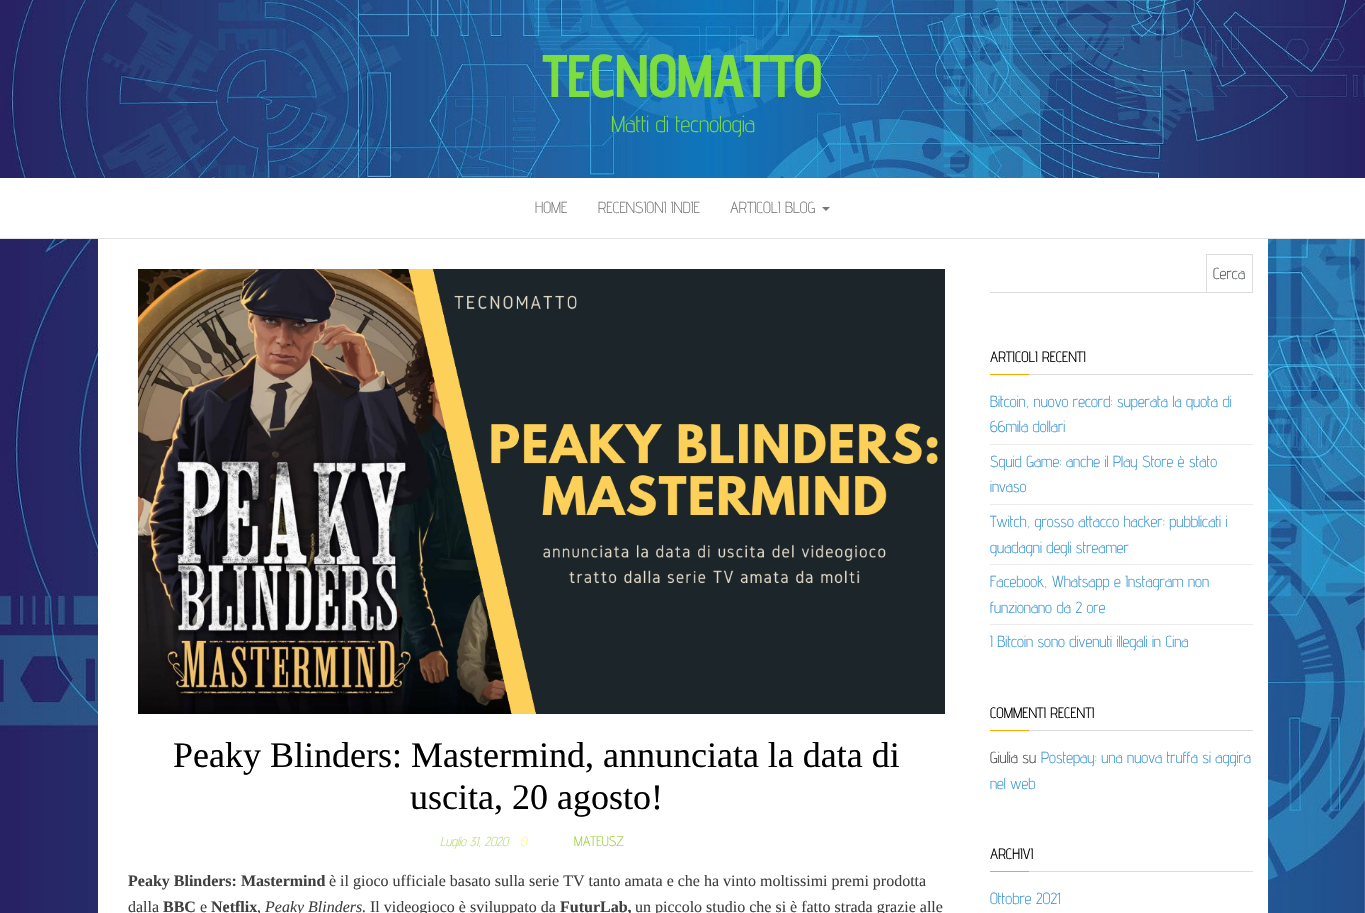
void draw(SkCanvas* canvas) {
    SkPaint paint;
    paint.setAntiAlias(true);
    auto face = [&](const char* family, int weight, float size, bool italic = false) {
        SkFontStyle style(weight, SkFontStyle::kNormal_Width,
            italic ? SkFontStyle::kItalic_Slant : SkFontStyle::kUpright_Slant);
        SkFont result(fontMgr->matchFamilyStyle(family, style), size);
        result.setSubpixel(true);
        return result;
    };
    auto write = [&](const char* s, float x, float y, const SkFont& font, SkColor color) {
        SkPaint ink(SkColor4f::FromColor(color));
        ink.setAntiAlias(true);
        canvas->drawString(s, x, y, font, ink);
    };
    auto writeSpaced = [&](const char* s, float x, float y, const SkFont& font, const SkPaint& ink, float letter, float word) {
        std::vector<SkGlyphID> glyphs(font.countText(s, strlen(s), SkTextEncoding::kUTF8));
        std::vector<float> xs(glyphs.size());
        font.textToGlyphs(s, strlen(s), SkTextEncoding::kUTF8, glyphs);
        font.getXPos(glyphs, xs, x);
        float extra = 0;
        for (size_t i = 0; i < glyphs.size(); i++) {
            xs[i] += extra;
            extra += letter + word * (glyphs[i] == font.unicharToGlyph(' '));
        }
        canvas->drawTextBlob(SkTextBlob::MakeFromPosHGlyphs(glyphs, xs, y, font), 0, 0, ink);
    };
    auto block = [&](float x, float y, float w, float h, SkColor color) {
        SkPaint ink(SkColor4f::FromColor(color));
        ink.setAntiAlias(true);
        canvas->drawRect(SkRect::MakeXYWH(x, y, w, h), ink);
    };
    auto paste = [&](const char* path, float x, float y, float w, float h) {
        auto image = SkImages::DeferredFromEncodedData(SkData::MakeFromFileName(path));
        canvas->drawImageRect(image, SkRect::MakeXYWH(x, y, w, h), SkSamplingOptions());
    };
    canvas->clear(SK_ColorWHITE);
    paste("pic1.png", 0, 239, 1365, 674);
    paste("pic2.png", 0, 0, 1365, 178);
    auto kFont1 = face("Advent Pro", 700, 60);
    paint.setColor(SkColorSetRGB(123, 221, 62));
    writeSpaced("TECNOMATTO", 542, 97, kFont1, paint, -1.25f, 0);
    auto kFont2 = face("Advent Pro", 300, 23);
    write("Matti di tecnologia", 611, 132, kFont2, SkColorSetRGB(123, 221, 62));
    block(0, 238, 1365, 1, SkColorSetRGB(227, 227, 227));
    auto kFont3 = face("Advent Pro", 300, 16);
    write("HOME", 535, 213, kFont3, SkColorSetRGB(119, 119, 119));
    write("RECENSIONI INDIE", 598, 213, kFont3, SkColorSetRGB(119, 119, 119));
    write("ARTICOLI BLOG", 730, 213, kFont3, SkColorSetRGB(119, 119, 119));
    paint.setColor(SkColorSetRGB(119, 119, 119));
    canvas->drawPath(SkPathBuilder().moveTo(822, 207).lineTo(830, 207).lineTo(826, 211).close().detach(), paint);
    block(98, 239, 1170, 674, SK_ColorWHITE);
    paste("pic3.png", 138, 269, 807, 445);
    auto kFont4 = face("Liberation Serif", 400, 36);
    write("Peaky Blinders: Mastermind, annunciata la data di", 173, 767, kFont4, SK_ColorBLACK);
    write("uscita, 20 agosto!", 410, 809, kFont4, SK_ColorBLACK);
    auto kFont5 = face("Advent Pro", 300, 13, true);
    write("Luglio 31, 2020", 440, 846, kFont5, SkColorSetRGB(184, 220, 112));
    write("0", 520, 846, kFont5, SkColorSetRGB(255, 255, 77));
    auto kFont6 = face("Advent Pro", 300, 14);
    write("MATEUSZ", 574, 846, kFont6, SkColorSetRGB(154, 205, 50));
    auto kFont7 = face("Liberation Serif", 700, 16);
    write("Peaky Blinders: Mastermind", 128, 886, kFont7, SkColorSetRGB(64, 64, 64));
    auto kFont8 = face("Liberation Serif", 400, 16);
    write("è il gioco ufficiale basato sulla serie TV tanto amata e che ha vinto moltissimi premi prodotta", 329, 886, kFont8, SkColorSetRGB(64, 64, 64));
    write("dalla", 128, 912, kFont8, SkColorSetRGB(64, 64, 64));
    write("BBC", 163, 912, kFont7, SkColorSetRGB(64, 64, 64));
    write("e", 200, 912, kFont8, SkColorSetRGB(64, 64, 64));
    write("Netflix", 211, 912, kFont7, SkColorSetRGB(64, 64, 64));
    write(",", 257, 912, kFont8, SkColorSetRGB(64, 64, 64));
    auto kFont9 = face("Liberation Serif", 400, 16, true);
    write("Peaky Blinders.", 265, 912, kFont9, SkColorSetRGB(64, 64, 64));
    write("Il videogioco è sviluppato da", 370, 912, kFont8, SkColorSetRGB(64, 64, 64));
    write("FuturLab,", 560, 912, kFont7, SkColorSetRGB(64, 64, 64));
    write("un piccolo studio che si è fatto strada grazie alle", 635, 912, kFont8, SkColorSetRGB(64, 64, 64));
    paint.setStyle(SkPaint::kStroke_Style);
    paint.setStrokeWidth(1);
    paint.setColor(SkColorSetRGB(221, 221, 221));
    canvas->drawRect(SkRect::MakeXYWH(1206.5f, 254.5f, 46, 38), paint);
    write("Cerca", 1213, 279, kFont3, SkColorSetRGB(70, 74, 76));
    block(990, 292, 216, 1, SkColorSetRGB(221, 221, 221));
    auto kFont10 = face("Advent Pro", 400, 15);
    write("ARTICOLI RECENTI", 990, 362, kFont10, SK_ColorBLACK);
    block(990, 374, 39, 1, SkColorSetRGB(255, 167, 0));
    block(1029, 374, 224, 1, SkColorSetRGB(221, 221, 221));
    block(990, 444, 263, 1, SkColorSetRGB(235, 235, 235));
    write("Bitcoin, nuovo record: superata la quota di", 990, 407, kFont3, SkColorSetRGB(53, 146, 210));
    write("66mila dollari", 990, 432, kFont3, SkColorSetRGB(53, 146, 210));
    block(990, 504, 263, 1, SkColorSetRGB(235, 235, 235));
    write("Squid Game: anche il Play Store è stato", 990, 467, kFont3, SkColorSetRGB(53, 146, 210));
    write("invaso", 990, 492, kFont3, SkColorSetRGB(53, 146, 210));
    block(990, 564, 263, 1, SkColorSetRGB(235, 235, 235));
    write("Twitch, grosso attacco hacker: pubblicati i", 990, 527, kFont3, SkColorSetRGB(53, 146, 210));
    write("guadagni degli streamer", 990, 553, kFont3, SkColorSetRGB(53, 146, 210));
    block(990, 624, 263, 1, SkColorSetRGB(235, 235, 235));
    write("Facebook, Whatsapp e Instagram non", 990, 587, kFont3, SkColorSetRGB(53, 146, 210));
    write("funzionano da 2 ore", 990, 613, kFont3, SkColorSetRGB(53, 146, 210));
    write("I Bitcoin sono divenuti illegali in Cina", 990, 647, kFont3, SkColorSetRGB(53, 146, 210));
    write("COMMENTI RECENTI", 990, 718, kFont10, SK_ColorBLACK);
    block(990, 730, 39, 1, SkColorSetRGB(255, 167, 0));
    block(1029, 730, 224, 1, SkColorSetRGB(221, 221, 221));
    write("Giulia su", 990, 763, kFont3, SkColorSetRGB(64, 64, 64));
    write("Postepay: una nuova truffa si aggira", 1041, 763, kFont3, SkColorSetRGB(53, 146, 210));
    write("nel web", 990, 789, kFont3, SkColorSetRGB(53, 146, 210));
    write("ARCHIVI", 990, 859, kFont10, SK_ColorBLACK);
    block(990, 871, 39, 1, SkColorSetRGB(255, 167, 0));
    block(1029, 871, 224, 1, SkColorSetRGB(221, 221, 221));
    write("Ottobre 2021", 990, 904, kFont3, SkColorSetRGB(53, 146, 210));
}
